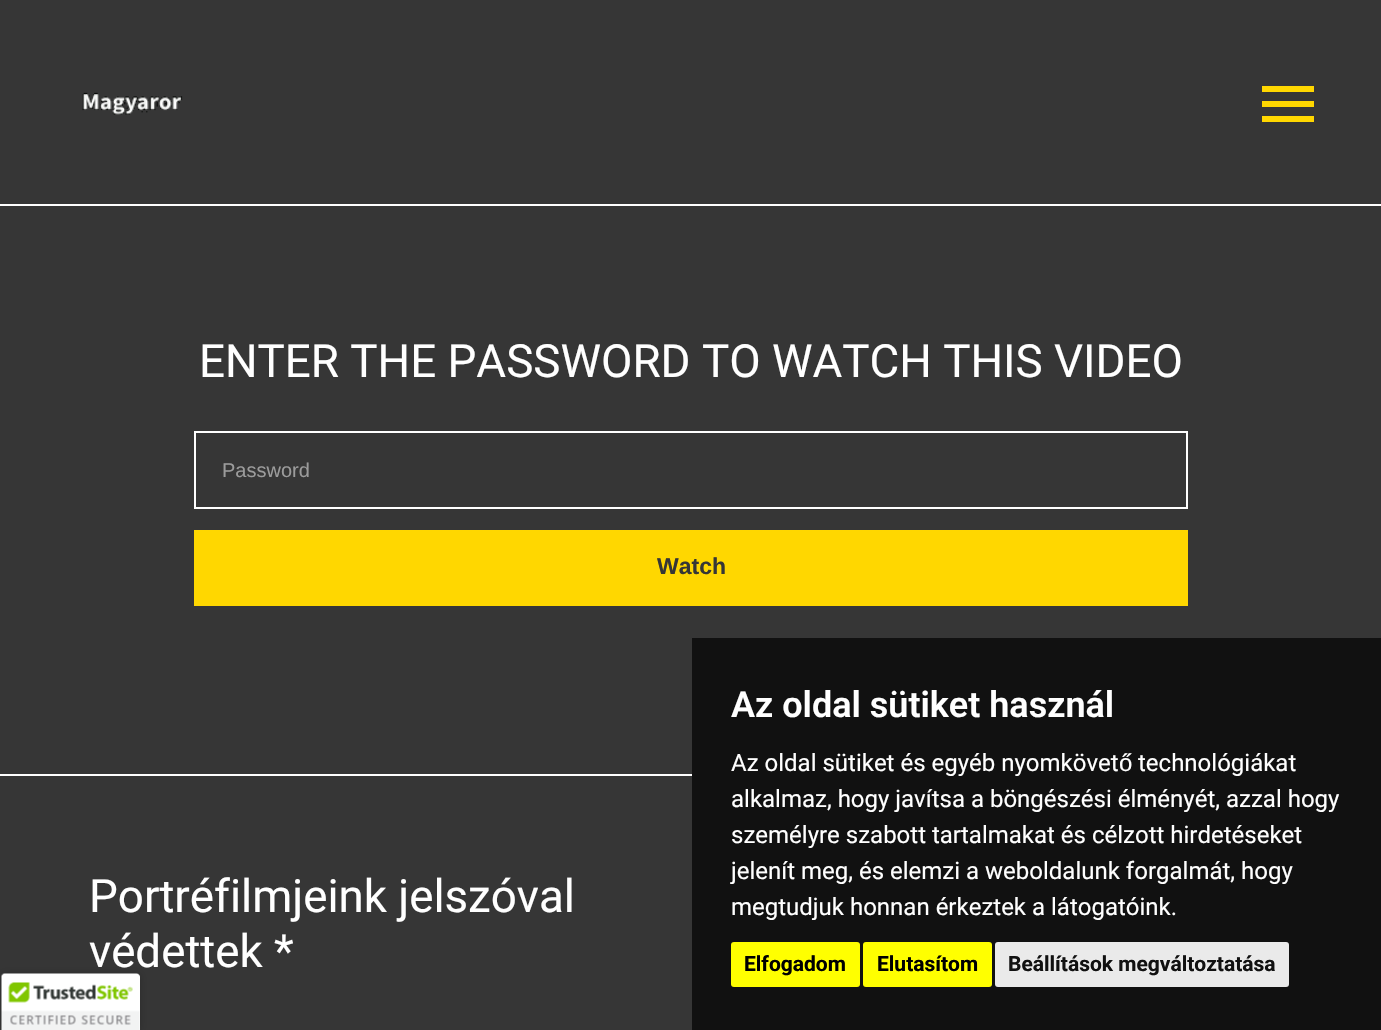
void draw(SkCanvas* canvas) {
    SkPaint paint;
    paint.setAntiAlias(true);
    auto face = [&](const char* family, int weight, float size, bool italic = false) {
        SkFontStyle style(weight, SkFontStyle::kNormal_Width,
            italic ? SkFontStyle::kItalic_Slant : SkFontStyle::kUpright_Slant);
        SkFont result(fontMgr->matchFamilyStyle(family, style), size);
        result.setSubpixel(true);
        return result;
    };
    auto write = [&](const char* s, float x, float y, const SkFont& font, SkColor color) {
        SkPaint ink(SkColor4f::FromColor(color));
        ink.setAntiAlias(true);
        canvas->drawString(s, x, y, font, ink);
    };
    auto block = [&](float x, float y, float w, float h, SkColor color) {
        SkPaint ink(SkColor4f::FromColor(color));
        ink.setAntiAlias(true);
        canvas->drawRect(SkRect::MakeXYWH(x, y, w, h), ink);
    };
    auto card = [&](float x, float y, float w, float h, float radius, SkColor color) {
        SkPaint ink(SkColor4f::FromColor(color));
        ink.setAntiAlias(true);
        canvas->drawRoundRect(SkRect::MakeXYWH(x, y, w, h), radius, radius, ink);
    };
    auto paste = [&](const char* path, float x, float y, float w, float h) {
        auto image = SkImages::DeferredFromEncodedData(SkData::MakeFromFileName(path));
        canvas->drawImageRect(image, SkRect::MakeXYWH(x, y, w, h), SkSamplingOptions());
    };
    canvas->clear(SkColorSetRGB(54, 54, 54));
    block(0, 204, 1381, 2, SK_ColorWHITE);
    paste("pic1.png", 82, 92, 101, 23);
    block(1262, 101, 52, 6, SkColorSetRGB(255, 215, 0));
    block(1262, 86, 52, 6, SkColorSetRGB(255, 215, 0));
    block(1262, 116, 52, 6, SkColorSetRGB(255, 215, 0));
    auto kFont1 = face("Roboto", 400, 45.7f);
    write("ENTER THE PASSWORD TO WATCH THIS VIDEO", 199, 377, kFont1, SK_ColorWHITE);
    paint.setStyle(SkPaint::kStroke_Style);
    paint.setStrokeWidth(2);
    paint.setColor(SK_ColorWHITE);
    canvas->drawRect(SkRect::MakeXYWH(195, 432, 992, 76), paint);
    auto kFont2 = face("Liberation Sans", 400, 20);
    write("Password", 222, 477, kFont2, SkColorSetRGB(155, 155, 155));
    block(194, 530, 994, 76, SkColorSetRGB(255, 215, 0));
    auto kFont3 = face("Liberation Sans", 700, 23);
    write("Watch", 657, 574, kFont3, SkColorSetRGB(54, 54, 54));
    block(0, 774, 692, 2, SK_ColorWHITE);
    write("Portréfilmjeink jelszóval", 89, 912, kFont1, SK_ColorWHITE);
    write("védettek *", 89, 967, kFont1, SK_ColorWHITE);
    block(692, 638, 689, 392, SkColorSetRGB(17, 17, 17));
    auto kFont4 = face("Roboto", 600, 36);
    write("Az oldal sütiket használ", 731, 717, kFont4, SK_ColorWHITE);
    auto kFont5 = face("Roboto", 400, 24);
    write("Az oldal sütiket és egyéb nyomkövet", 731, 771, kFont5, SK_ColorWHITE);
    auto kFont6 = face("Liberation Sans", 400, 24);
    write("ő", 1119, 771, kFont6, SK_ColorWHITE);
    write("technológiákat", 1138, 771, kFont5, SK_ColorWHITE);
    write("alkalmaz, hogy javítsa a böngészési élményét, azzal hogy", 731, 807, kFont5, SK_ColorWHITE);
    write("személyre szabott tartalmakat és célzott hirdetéseket", 731, 843, kFont5, SK_ColorWHITE);
    write("jelenít meg, és elemzi a weboldalunk forgalmát, hogy", 731, 879, kFont5, SK_ColorWHITE);
    write("megtudjuk honnan érkeztek a látogatóink.", 731, 915, kFont5, SK_ColorWHITE);
    card(731, 942, 129, 45, 3, SkColorSetRGB(255, 255, 0));
    auto kFont7 = face("Roboto", 700, 21);
    write("Elfogadom", 744, 971, kFont7, SK_ColorBLACK);
    card(863, 942, 129, 45, 3, SkColorSetRGB(255, 255, 0));
    write("Elutasítom", 877, 971, kFont7, SK_ColorBLACK);
    card(995, 942, 294, 45, 3, SkColorSetRGB(234, 234, 234));
    write("Beállítások megváltoztatása", 1008, 971, kFont7, SkColorSetRGB(17, 17, 17));
    paint.setStyle(SkPaint::kFill_Style);
    paint.setColor(SkColorSetARGB(51, 0, 0, 0));
    paint.setMaskFilter(SkMaskFilter::MakeBlur(kNormal_SkBlurStyle, 4));
    canvas->drawRoundRect(SkRect::MakeXYWH(2, 974, 138, 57), 3, 3, paint);
    paint.setMaskFilter(nullptr);
    paint.setColor(SK_ColorWHITE);
    canvas->drawPath(SkPathBuilder().moveTo(5, 974).lineTo(137, 974).cubicTo(138.5f, 974, 140, 975.5f, 140, 977).lineTo(140, 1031).lineTo(2, 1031).lineTo(2, 977).cubicTo(2, 975.5f, 3.5f, 974, 5, 974).close().detach(), paint);
    paste("pic2.png", 1, 973, 139, 57);
}
